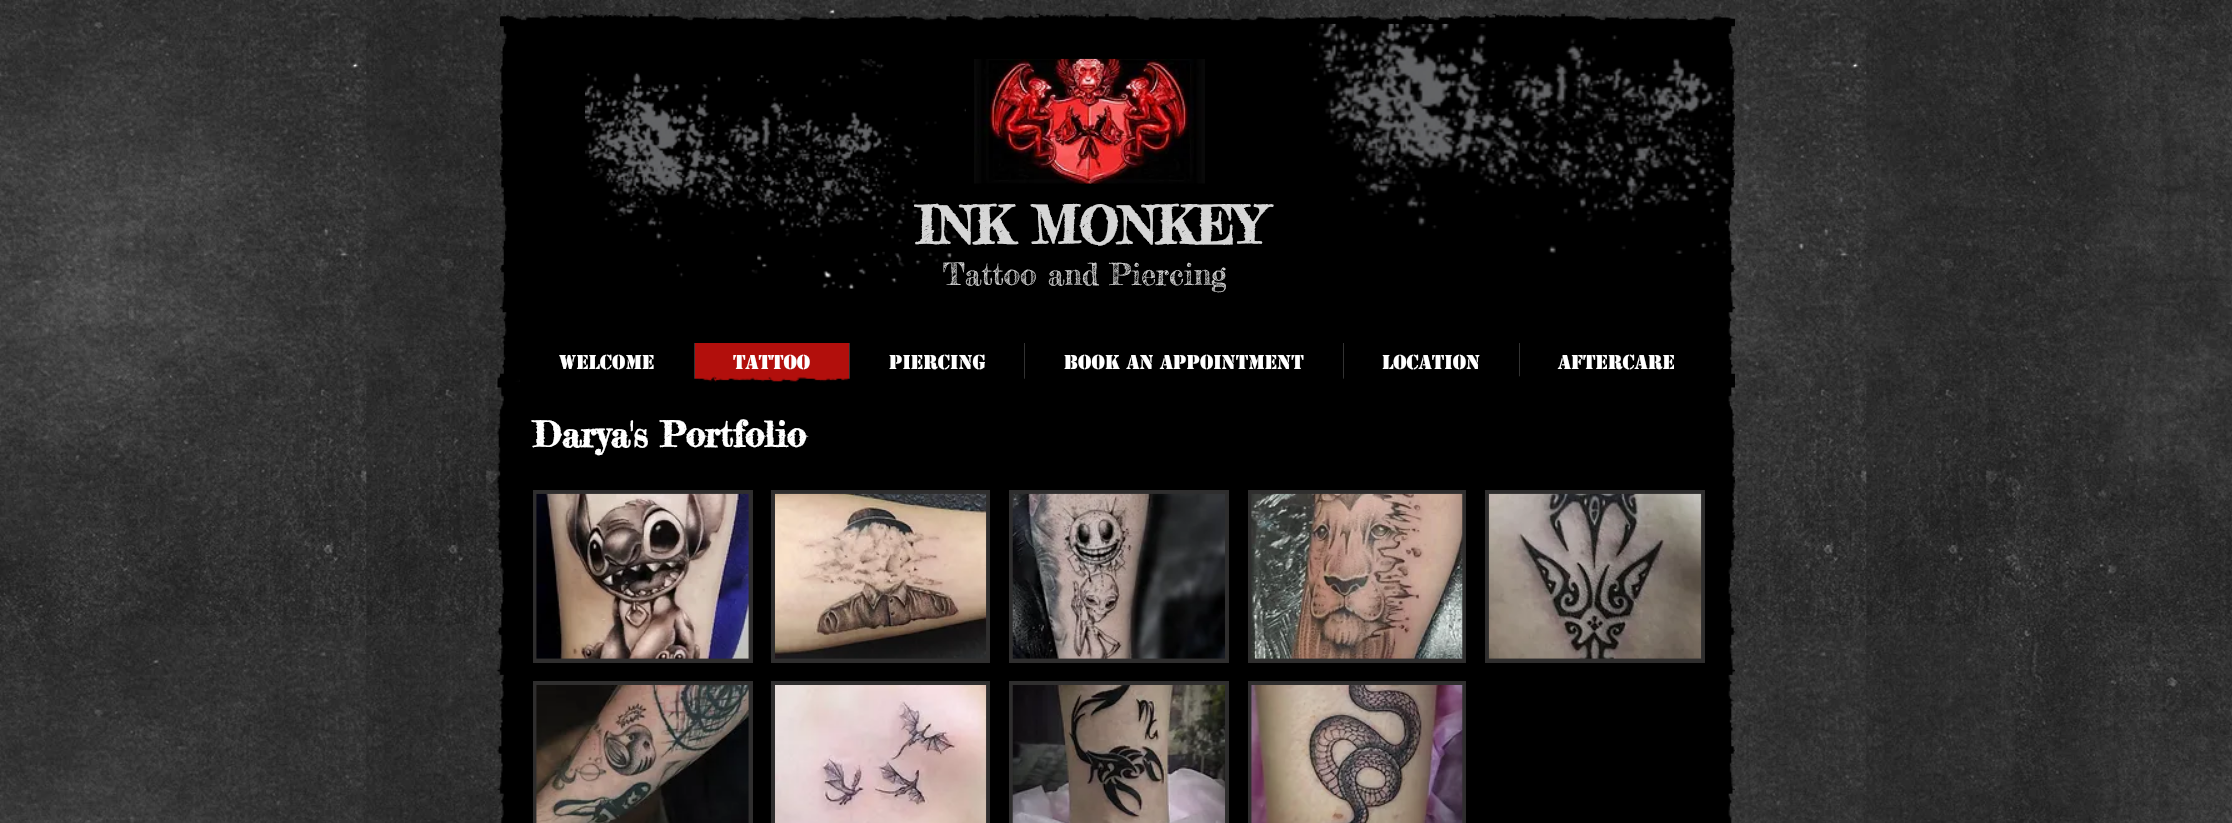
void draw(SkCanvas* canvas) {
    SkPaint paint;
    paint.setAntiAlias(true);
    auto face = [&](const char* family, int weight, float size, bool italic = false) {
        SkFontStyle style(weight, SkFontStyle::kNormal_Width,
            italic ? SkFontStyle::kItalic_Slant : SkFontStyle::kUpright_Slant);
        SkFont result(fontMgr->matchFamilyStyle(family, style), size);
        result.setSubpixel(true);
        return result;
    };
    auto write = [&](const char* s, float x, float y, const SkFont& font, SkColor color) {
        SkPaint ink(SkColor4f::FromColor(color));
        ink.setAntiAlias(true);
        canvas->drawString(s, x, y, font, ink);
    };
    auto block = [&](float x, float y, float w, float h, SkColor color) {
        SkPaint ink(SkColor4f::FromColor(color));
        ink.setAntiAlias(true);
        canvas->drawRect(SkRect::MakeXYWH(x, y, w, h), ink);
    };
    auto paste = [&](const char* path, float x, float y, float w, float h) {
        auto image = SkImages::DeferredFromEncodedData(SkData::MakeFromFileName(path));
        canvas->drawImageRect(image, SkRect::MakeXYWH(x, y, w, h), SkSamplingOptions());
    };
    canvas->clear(SK_ColorWHITE);
    paste("pic1.png", 0, 0, 2232, 823);
    block(509, 26, 1217, 348, SK_ColorBLACK);
    paste("pic2.png", 500, 13, 1235, 14);
    paste("pic3.png", 500, 373, 1235, 9);
    paste("pic4.png", 500, 26, 9, 348);
    paste("pic5.png", 1726, 26, 9, 348);
    paste("pic6.png", 585, 59, 381, 230);
    paste("pic7.png", 974, 58, 231, 126);
    paste("pic8.png", 1309, 23, 535, 231);
    auto kFont1 = face("Fredericka the Great", 700, 51.25f);
    write("INK MONKEY", 916, 244, kFont1, SkColorSetRGB(214, 214, 214));
    auto kFont2 = face("Fredericka the Great", 400, 30);
    write("Tattoo and Piercing", 943, 285, kFont2, SkColorSetRGB(214, 214, 214));
    paint.setColor(SkColorSetARGB(153, 0, 0, 0));
    paint.setMaskFilter(SkMaskFilter::MakeBlur(kNormal_SkBlurStyle, 2.5f));
    canvas->drawRect(SkRect::MakeXYWH(520, 344, 1194, 40), paint);
    paint.setMaskFilter(nullptr);
    block(520, 379, 1194, 3, SK_ColorBLACK);
    auto kFont3 = face("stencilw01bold", 700, 18.75f);
    write("Welcome", 559, 369, kFont3, SK_ColorWHITE);
    block(695, 343, 154, 39, SkColorSetRGB(178, 15, 12));
    block(694, 343, 1, 40, SkColorSetRGB(51, 51, 51));
    write("Tattoo", 733, 369, kFont3, SK_ColorWHITE);
    block(849, 343, 1, 40, SkColorSetRGB(51, 51, 51));
    write("Piercing", 889, 369, kFont3, SK_ColorWHITE);
    block(1024, 343, 1, 40, SkColorSetRGB(51, 51, 51));
    write("BOOK AN APPOINTMENT", 1064, 369, kFont3, SK_ColorWHITE);
    block(1343, 343, 1, 40, SkColorSetRGB(51, 51, 51));
    write("Location", 1382, 369, kFont3, SK_ColorWHITE);
    block(1519, 343, 1, 40, SkColorSetRGB(51, 51, 51));
    write("Aftercare", 1558, 369, kFont3, SK_ColorWHITE);
    block(508, 387, 1217, 436, SK_ColorBLACK);
    paste("pic9.png", 497, 376, 1238, 12);
    paste("pic10.png", 497, 387, 11, 436);
    paste("pic11.png", 1725, 387, 10, 436);
    auto kFont4 = face("Fredericka the Great", 700, 35);
    write("Darya's Portfolio", 533, 447, kFont4, SK_ColorWHITE);
    block(533, 490, 220, 173, SkColorSetRGB(47, 46, 46));
    paste("pic12.png", 536, 493, 213, 166);
    block(771, 490, 219, 173, SkColorSetRGB(47, 46, 46));
    paste("pic13.png", 775, 493, 212, 166);
    block(1009, 490, 220, 173, SkColorSetRGB(47, 46, 46));
    paste("pic14.png", 1012, 493, 213, 166);
    block(1248, 490, 218, 173, SkColorSetRGB(47, 46, 46));
    paste("pic15.png", 1251, 493, 212, 166);
    block(1485, 490, 220, 173, SkColorSetRGB(47, 46, 46));
    paste("pic16.png", 1488, 493, 214, 166);
    block(533, 681, 220, 142, SkColorSetRGB(47, 46, 46));
    paste("pic17.png", 536, 685, 213, 138);
    block(771, 681, 219, 142, SkColorSetRGB(47, 46, 46));
    paste("pic18.png", 775, 685, 212, 138);
    block(1009, 681, 220, 142, SkColorSetRGB(47, 46, 46));
    paste("pic19.png", 1012, 685, 213, 138);
    block(1248, 681, 218, 142, SkColorSetRGB(47, 46, 46));
    paste("pic20.png", 1251, 685, 212, 138);
}
